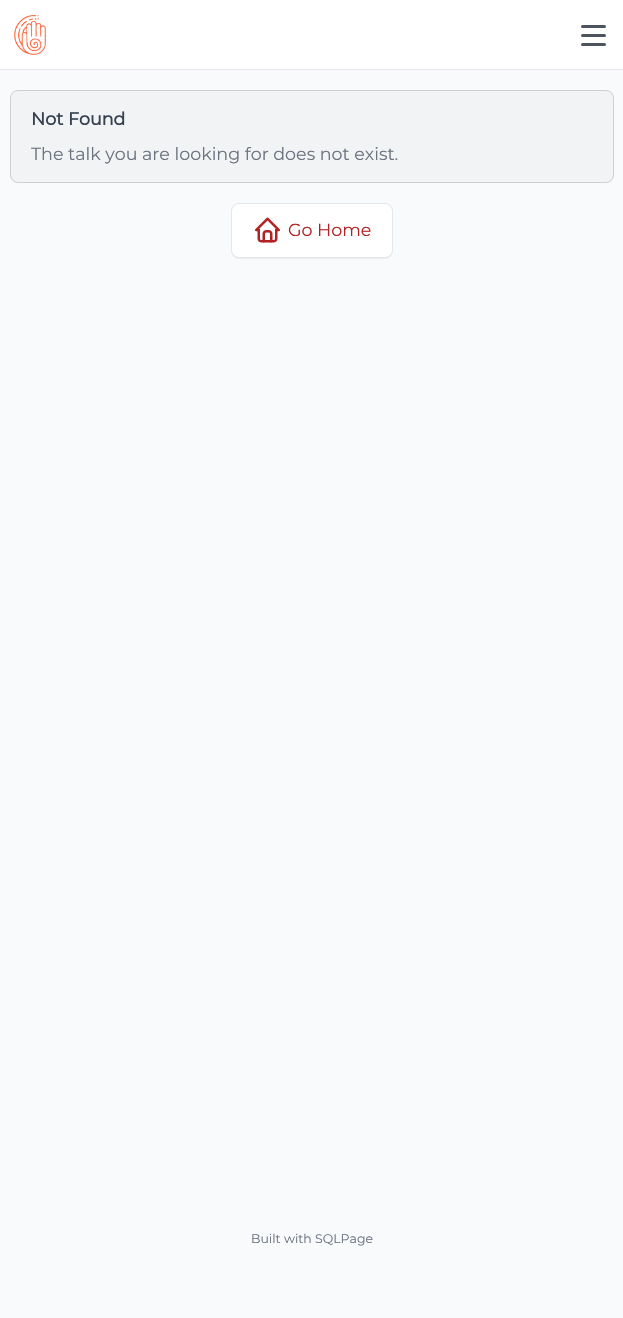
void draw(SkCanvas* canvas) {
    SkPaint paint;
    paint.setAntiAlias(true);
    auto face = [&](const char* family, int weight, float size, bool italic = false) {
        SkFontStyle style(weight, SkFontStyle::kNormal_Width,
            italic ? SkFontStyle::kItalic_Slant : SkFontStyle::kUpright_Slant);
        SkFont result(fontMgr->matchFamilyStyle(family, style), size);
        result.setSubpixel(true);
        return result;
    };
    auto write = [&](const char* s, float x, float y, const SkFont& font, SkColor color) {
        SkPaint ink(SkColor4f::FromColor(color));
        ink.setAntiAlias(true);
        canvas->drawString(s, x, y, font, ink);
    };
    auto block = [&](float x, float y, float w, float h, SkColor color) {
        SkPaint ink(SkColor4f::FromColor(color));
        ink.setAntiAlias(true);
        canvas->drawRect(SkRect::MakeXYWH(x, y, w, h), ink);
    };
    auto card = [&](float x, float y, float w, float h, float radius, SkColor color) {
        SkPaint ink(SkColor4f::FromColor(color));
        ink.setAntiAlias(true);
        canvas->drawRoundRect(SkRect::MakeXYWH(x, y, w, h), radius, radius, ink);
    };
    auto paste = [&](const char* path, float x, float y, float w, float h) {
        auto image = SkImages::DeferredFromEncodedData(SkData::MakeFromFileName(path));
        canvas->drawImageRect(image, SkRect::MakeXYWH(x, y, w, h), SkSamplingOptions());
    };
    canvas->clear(SkColorSetRGB(249, 250, 251));
    block(0, 0, 623, 69, SK_ColorWHITE);
    block(0, 69, 623, 1, SkColorSetRGB(229, 231, 235));
    paste("pic1.png", 14, 15, 32, 40);
    card(581, 34, 25, 3, 1.5f, SkColorSetRGB(76, 84, 95));
    card(581, 25, 25, 3, 1.5f, SkColorSetRGB(76, 84, 95));
    card(581, 43, 25, 3, 1.5f, SkColorSetRGB(76, 84, 95));
    card(10, 90, 604, 93, 8, SkColorSetRGB(242, 243, 244));
    paint.setStyle(SkPaint::kStroke_Style);
    paint.setStrokeWidth(1);
    paint.setColor(SkColorSetARGB(51, 55, 65, 81));
    canvas->drawRoundRect(SkRect::MakeXYWH(10.5f, 90.5f, 603, 92), 7.5f, 7.5f, paint);
    auto kFont1 = face("Montserrat", 700, 17.5f);
    write("Not Found", 31, 125, kFont1, SkColorSetRGB(55, 65, 81));
    auto kFont2 = face("Montserrat", 100, 17.5f);
    write("The talk you are looking for does not exist.", 31, 160, kFont2, SkColorSetRGB(107, 114, 128));
    paint.setStyle(SkPaint::kFill_Style);
    paint.setColor(SkColorSetARGB(15, 31, 41, 55));
    paint.setMaskFilter(SkMaskFilter::MakeBlur(kNormal_SkBlurStyle, 0.5f));
    canvas->drawRoundRect(SkRect::MakeXYWH(231, 204, 162, 55), 8, 8, paint);
    paint.setMaskFilter(nullptr);
    paint.setColor(SK_ColorWHITE);
    canvas->drawRoundRect(SkRect::MakeXYWH(231.5f, 203.5f, 161, 54), 7.5f, 7.5f, paint);
    paint.setStyle(SkPaint::kStroke_Style);
    paint.setColor(SkColorSetRGB(229, 231, 235));
    canvas->drawRoundRect(SkRect::MakeXYWH(231.5f, 203.5f, 161, 54), 7.5f, 7.5f, paint);
    paste("pic2.png", 255, 217, 25, 26);
    write("Go Home", 288, 236, kFont2, SkColorSetRGB(178, 34, 34));
    auto kFont3 = face("Montserrat", 100, 12.5f);
    write("Built with SQLPage", 251, 1243, kFont3, SkColorSetRGB(107, 114, 128));
}
